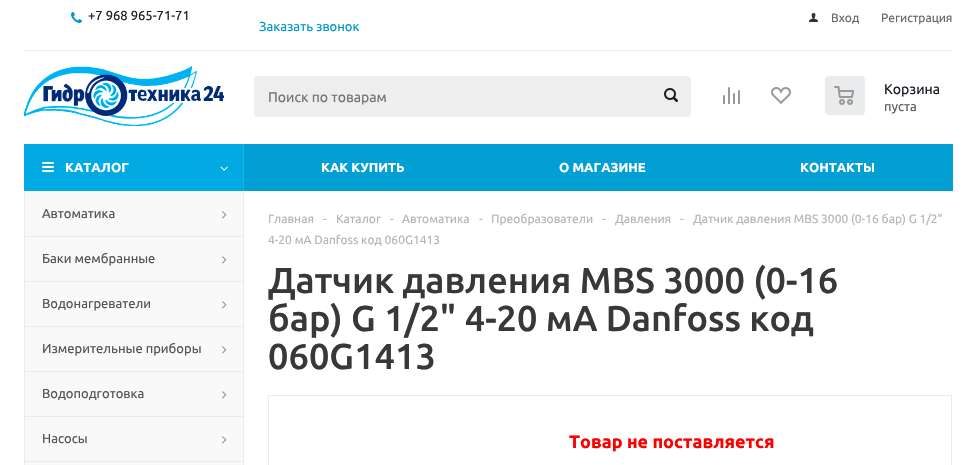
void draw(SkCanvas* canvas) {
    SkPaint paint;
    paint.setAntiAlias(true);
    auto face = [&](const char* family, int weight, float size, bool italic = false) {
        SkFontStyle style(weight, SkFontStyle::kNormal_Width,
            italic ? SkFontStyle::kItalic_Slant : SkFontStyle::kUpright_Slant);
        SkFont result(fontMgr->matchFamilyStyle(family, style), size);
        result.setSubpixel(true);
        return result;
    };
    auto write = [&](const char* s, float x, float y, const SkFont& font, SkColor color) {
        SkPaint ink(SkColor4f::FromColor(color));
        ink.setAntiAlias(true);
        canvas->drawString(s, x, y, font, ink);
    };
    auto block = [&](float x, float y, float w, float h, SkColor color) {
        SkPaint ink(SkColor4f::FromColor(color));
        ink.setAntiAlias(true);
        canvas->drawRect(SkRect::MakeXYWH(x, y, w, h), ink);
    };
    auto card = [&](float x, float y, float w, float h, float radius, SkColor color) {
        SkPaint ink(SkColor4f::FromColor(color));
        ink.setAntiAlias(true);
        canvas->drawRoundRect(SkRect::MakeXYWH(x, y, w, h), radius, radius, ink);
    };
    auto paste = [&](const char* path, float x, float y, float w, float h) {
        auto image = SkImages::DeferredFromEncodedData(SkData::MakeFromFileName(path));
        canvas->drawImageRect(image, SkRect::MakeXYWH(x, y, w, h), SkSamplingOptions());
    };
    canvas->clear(SK_ColorWHITE);
    paste("pic1.png", 71, 12, 11, 11);
    auto kFont1 = face("Ubuntu", 400, 13);
    write("+7 968 965-71-71", 88, 20, kFont1, SkColorSetRGB(29, 32, 41));
    write("Заказать звонок", 259, 31, kFont1, SkColorSetRGB(0, 151, 203));
    paste("pic2.png", 809, 13, 9, 9);
    auto kFont2 = face("Ubuntu", 400, 12);
    write("Вход", 831, 22, kFont2, SkColorSetRGB(102, 102, 102));
    write("Регистрация", 881, 22, kFont2, SkColorSetRGB(102, 102, 102));
    block(24, 50, 928, 1, SkColorSetRGB(234, 235, 236));
    paste("pic3.png", 24, 66, 200, 60);
    card(254, 76, 437, 41, 4, SkColorSetRGB(238, 238, 238));
    auto kFont3 = face("Ubuntu", 400, 14);
    write("Поиск по товарам", 268, 102, kFont3, SkColorSetRGB(117, 117, 117));
    paste("pic4.png", 664, 88, 14, 15);
    paste("pic5.png", 723, 87, 17, 17);
    paste("pic6.png", 771, 87, 20, 17);
    card(825, 76, 40, 39, 4, SkColorSetRGB(234, 235, 236));
    paste("pic7.png", 834, 86, 20, 19);
    write("Корзина", 884, 94, kFont3, SkColorSetRGB(29, 32, 41));
    write("пуста", 884, 111, kFont1, SkColorSetRGB(95, 95, 95));
    block(244, 144, 709, 47, SkColorSetRGB(1, 159, 212));
    block(24, 144, 219, 47, SkColorSetRGB(1, 170, 227));
    paste("pic8.png", 42, 162, 12, 10);
    auto kFont4 = face("Ubuntu", 700, 13);
    write("КАТАЛОГ", 65, 172, kFont4, SK_ColorWHITE);
    block(243, 144, 1, 47, SkColorSetRGB(26, 179, 230));
    paste("pic9.png", 220, 166, 8, 5);
    write("КАК КУПИТЬ", 321, 172, kFont4, SK_ColorWHITE);
    write("О МАГАЗИНЕ", 559, 172, kFont4, SK_ColorWHITE);
    write("КОНТАКТЫ", 800, 172, kFont4, SK_ColorWHITE);
    block(25, 192, 218, 44, SkColorSetRGB(249, 249, 249));
    block(243, 192, 1, 44, SkColorSetRGB(234, 235, 236));
    block(24, 192, 1, 44, SkColorSetRGB(234, 235, 236));
    write("Автоматика", 42, 218, kFont1, SkColorSetRGB(85, 85, 85));
    paste("pic10.png", 222, 211, 5, 8);
    block(25, 237, 218, 44, SkColorSetRGB(249, 249, 249));
    block(24, 236, 220, 1, SkColorSetRGB(234, 235, 236));
    block(243, 236, 1, 45, SkColorSetRGB(234, 235, 236));
    block(24, 236, 1, 45, SkColorSetRGB(234, 235, 236));
    write("Баки мембранные", 42, 263, kFont1, SkColorSetRGB(85, 85, 85));
    paste("pic10.png", 222, 256, 5, 8);
    block(25, 282, 218, 44, SkColorSetRGB(249, 249, 249));
    block(24, 281, 220, 1, SkColorSetRGB(234, 235, 236));
    block(243, 281, 1, 45, SkColorSetRGB(234, 235, 236));
    block(24, 281, 1, 45, SkColorSetRGB(234, 235, 236));
    write("Водонагреватели", 42, 308, kFont1, SkColorSetRGB(85, 85, 85));
    paste("pic10.png", 222, 301, 5, 8);
    block(25, 327, 218, 44, SkColorSetRGB(249, 249, 249));
    block(24, 326, 220, 1, SkColorSetRGB(234, 235, 236));
    block(243, 326, 1, 45, SkColorSetRGB(234, 235, 236));
    block(24, 326, 1, 45, SkColorSetRGB(234, 235, 236));
    write("Измерительные приборы", 42, 353, kFont1, SkColorSetRGB(85, 85, 85));
    paste("pic10.png", 222, 346, 5, 8);
    block(25, 372, 218, 44, SkColorSetRGB(249, 249, 249));
    block(24, 371, 220, 1, SkColorSetRGB(234, 235, 236));
    block(243, 371, 1, 45, SkColorSetRGB(234, 235, 236));
    block(24, 371, 1, 45, SkColorSetRGB(234, 235, 236));
    write("Водоподготовка", 42, 398, kFont1, SkColorSetRGB(85, 85, 85));
    paste("pic10.png", 222, 391, 5, 8);
    block(25, 417, 218, 44, SkColorSetRGB(249, 249, 249));
    block(24, 416, 220, 1, SkColorSetRGB(234, 235, 236));
    block(243, 416, 1, 45, SkColorSetRGB(234, 235, 236));
    block(24, 416, 1, 45, SkColorSetRGB(234, 235, 236));
    write("Насосы", 42, 443, kFont1, SkColorSetRGB(85, 85, 85));
    paste("pic10.png", 222, 436, 5, 8);
    block(25, 462, 218, 3, SkColorSetRGB(249, 249, 249));
    block(24, 461, 220, 1, SkColorSetRGB(234, 235, 236));
    block(243, 461, 1, 4, SkColorSetRGB(234, 235, 236));
    block(24, 461, 1, 4, SkColorSetRGB(234, 235, 236));
    write("Главная", 268, 223, kFont2, SkColorSetRGB(182, 181, 181));
    write("-", 323, 223, kFont2, SkColorSetRGB(182, 181, 181));
    write("Каталог", 336, 223, kFont2, SkColorSetRGB(182, 181, 181));
    write("-", 390, 223, kFont2, SkColorSetRGB(182, 181, 181));
    write("Автоматика", 402, 223, kFont2, SkColorSetRGB(182, 181, 181));
    write("-", 479, 223, kFont2, SkColorSetRGB(182, 181, 181));
    write("Преобразователи", 491, 223, kFont2, SkColorSetRGB(182, 181, 181));
    write("-", 602, 223, kFont2, SkColorSetRGB(182, 181, 181));
    write("Давления", 615, 223, kFont2, SkColorSetRGB(182, 181, 181));
    write("-", 680, 223, kFont2, SkColorSetRGB(182, 181, 181));
    write("Датчик давления MBS 3000 (0-16 бар) G 1/2\"", 693, 223, kFont2, SkColorSetRGB(182, 181, 181));
    write("4-20 мА Danfoss код 060G1413", 268, 244, kFont2, SkColorSetRGB(182, 181, 181));
    auto kFont5 = face("Ubuntu", 500, 36);
    write("Датчик давления MBS 3000 (0-16", 268, 293, kFont5, SkColorSetRGB(56, 56, 56));
    write("бар) G 1/2\" 4-20 мА Danfoss код", 268, 331, kFont5, SkColorSetRGB(56, 56, 56));
    write("060G1413", 268, 369, kFont5, SkColorSetRGB(56, 56, 56));
    paint.setStyle(SkPaint::kStroke_Style);
    paint.setStrokeWidth(1);
    paint.setColor(SkColorSetRGB(234, 234, 234));
    canvas->drawRect(SkRect::MakeXYWH(268.5f, 395.5f, 683, 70), paint);
    auto kFont6 = face("Ubuntu", 700, 18);
    write("Товар не поставляется", 569, 448, kFont6, SkColorSetRGB(255, 0, 0));
}
